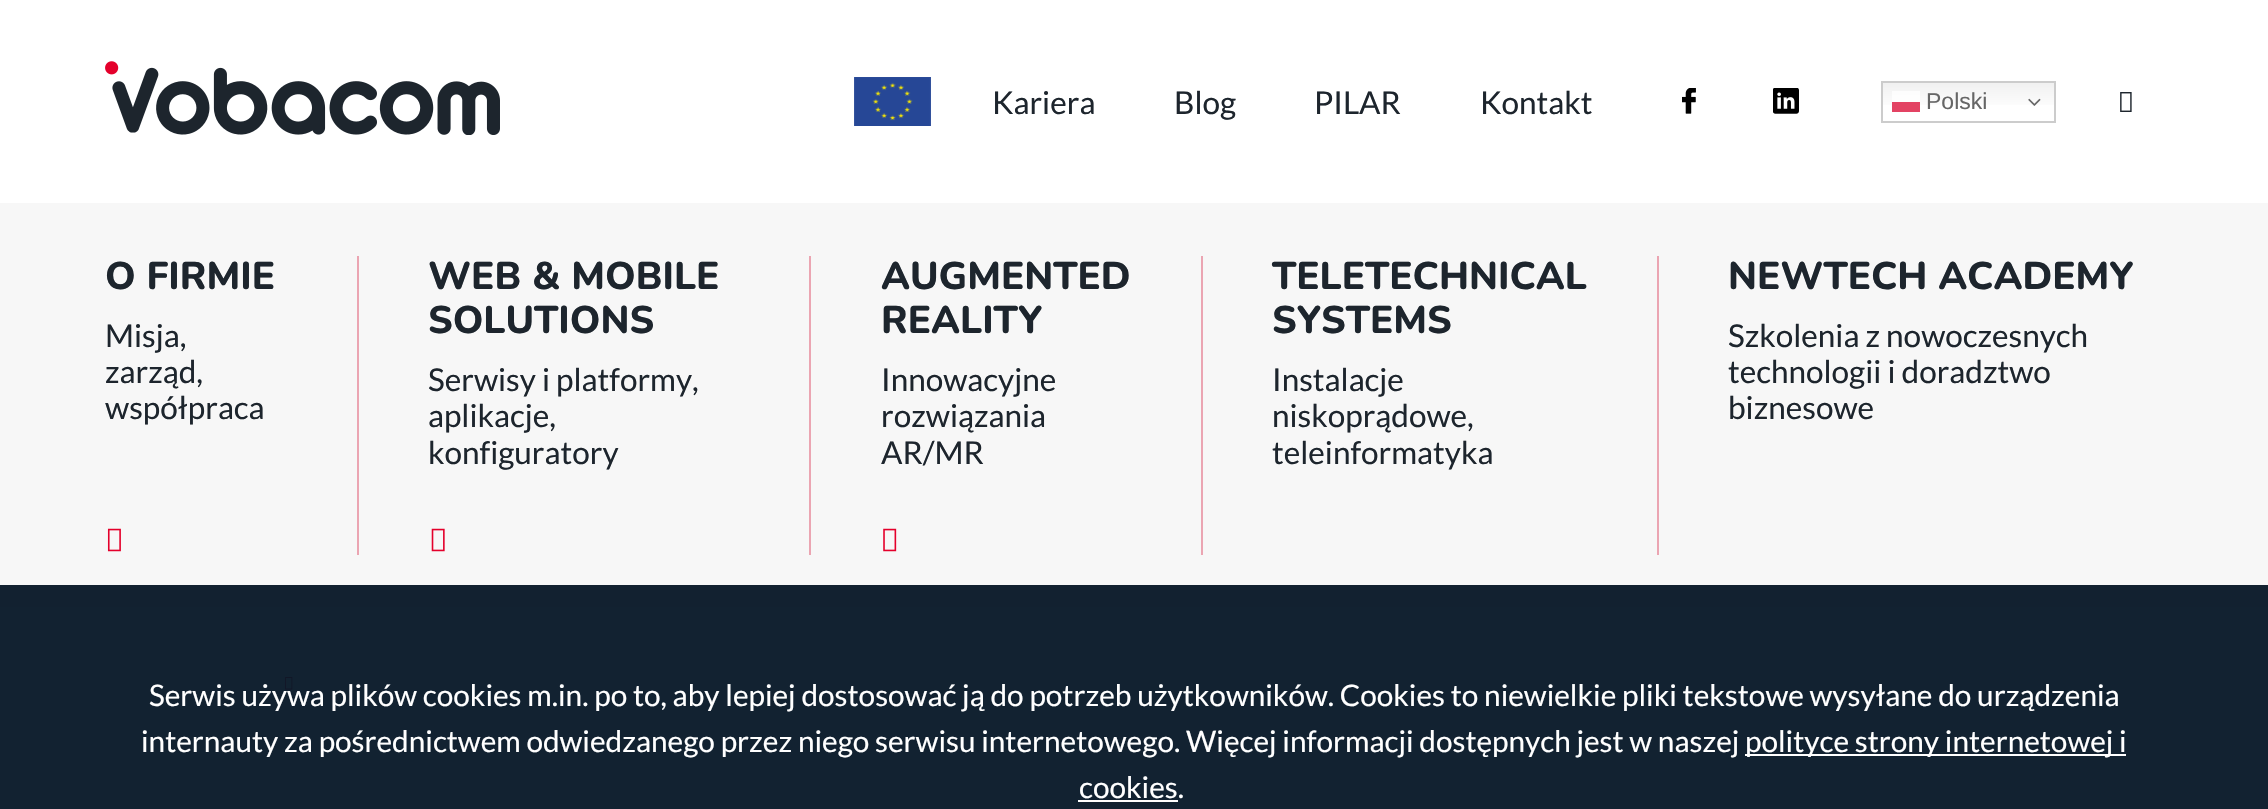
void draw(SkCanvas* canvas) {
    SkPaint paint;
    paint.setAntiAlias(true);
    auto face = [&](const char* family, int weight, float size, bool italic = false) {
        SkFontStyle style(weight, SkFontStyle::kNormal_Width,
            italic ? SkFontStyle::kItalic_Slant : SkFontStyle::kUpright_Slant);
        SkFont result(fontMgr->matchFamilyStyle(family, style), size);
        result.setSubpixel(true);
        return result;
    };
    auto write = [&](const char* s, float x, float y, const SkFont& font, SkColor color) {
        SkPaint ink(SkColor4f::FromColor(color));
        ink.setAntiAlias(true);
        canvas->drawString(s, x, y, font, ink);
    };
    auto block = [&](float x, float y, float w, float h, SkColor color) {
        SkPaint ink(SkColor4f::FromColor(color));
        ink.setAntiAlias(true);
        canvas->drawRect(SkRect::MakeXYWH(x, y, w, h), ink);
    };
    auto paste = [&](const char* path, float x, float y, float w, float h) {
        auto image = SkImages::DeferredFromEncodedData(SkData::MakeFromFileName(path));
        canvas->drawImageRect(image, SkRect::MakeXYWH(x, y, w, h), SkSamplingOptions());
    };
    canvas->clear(SK_ColorWHITE);
    block(0, 607, 2268, 202, SkColorSetRGB(18, 34, 49));
    paste("pic1.png", 105, 61, 395, 74);
    paste("pic2.png", 854, 77, 77, 49);
    auto kFont1 = face("Lato", 400, 31.5f);
    write("Kariera", 992, 114, kFont1, SkColorSetRGB(29, 37, 45));
    write("Blog", 1174, 114, kFont1, SkColorSetRGB(29, 37, 45));
    write("PILAR", 1314, 114, kFont1, SkColorSetRGB(29, 37, 45));
    write("Kontakt", 1480, 114, kFont1, SkColorSetRGB(29, 37, 45));
    paste("pic3.png", 1682, 88, 14, 26);
    paste("pic4.png", 1773, 88, 26, 26);
    {
        const SkColor colors[] = {SkColorSetRGB(239, 239, 239), SK_ColorWHITE};
        const float stops[] = {0, 0.7f};
        const SkPoint ends[] = {{1969, 80}, {1969, 123}};
        paint.setShader(SkGradientShader::MakeLinear(ends, colors, stops, 2, SkTileMode::kClamp));
        paint.setAlpha(255);
    }
    canvas->drawRect(SkRect::MakeXYWH(1883, 83, 171, 22), paint);
    {
        const SkColor colors[] = {SkColorSetRGB(252, 252, 252), SK_ColorWHITE};
        const float stops[] = {0, 0.7f};
        const SkPoint ends[] = {{1969, 80}, {1969, 123}};
        paint.setShader(SkGradientShader::MakeLinear(ends, colors, stops, 2, SkTileMode::kClamp));
        paint.setAlpha(255);
    }
    canvas->drawRect(SkRect::MakeXYWH(1892, 91, 28, 11), paint);
    paint.setStyle(SkPaint::kStroke_Style);
    paint.setStrokeWidth(2);
    paint.setShader(nullptr);
    paint.setColor(SkColorSetRGB(204, 204, 204));
    canvas->drawRect(SkRect::MakeXYWH(1882, 82, 173, 40), paint);
    block(1892, 102, 28, 10, SkColorSetRGB(227, 67, 99));
    auto kFont2 = face("Liberation Sans", 400, 23);
    write("Polski", 1926, 109, kFont2, SkColorSetRGB(102, 102, 102));
    paste("pic5.png", 2028, 98, 13, 8);
    paste("pic6.png", 2120, 92, 12, 20);
    block(0, 203, 2268, 382, SkColorSetRGB(247, 247, 247));
    block(0, 585, 2268, 22, SkColorSetRGB(18, 33, 48));
    block(357, 256, 2, 299, SkColorSetRGB(235, 165, 178));
    auto kFont3 = face("Nunito", 800, 38.5f);
    write("O FIRMIE", 105, 289, kFont3, SkColorSetRGB(29, 37, 45));
    write("Misja,", 105, 347, kFont1, SkColorSetRGB(29, 37, 45));
    write("zarząd,", 105, 383, kFont1, SkColorSetRGB(29, 37, 45));
    write("współpraca", 105, 419, kFont1, SkColorSetRGB(29, 37, 45));
    paste("pic7.png", 107, 528, 14, 24);
    block(809, 256, 2, 299, SkColorSetRGB(235, 165, 178));
    write("WEB & MOBILE", 428, 289, kFont3, SkColorSetRGB(29, 37, 45));
    write("SOLUTIONS", 428, 333, kFont3, SkColorSetRGB(29, 37, 45));
    write("Serwisy i platformy,", 428, 391, kFont1, SkColorSetRGB(29, 37, 45));
    write("aplikacje,", 428, 427, kFont1, SkColorSetRGB(29, 37, 45));
    write("konfiguratory", 428, 464, kFont1, SkColorSetRGB(29, 37, 45));
    paste("pic8.png", 431, 528, 14, 24);
    block(1201, 256, 2, 299, SkColorSetRGB(235, 165, 178));
    write("AUGMENTED", 881, 289, kFont3, SkColorSetRGB(29, 37, 45));
    write("REALITY", 881, 333, kFont3, SkColorSetRGB(29, 37, 45));
    write("Innowacyjne", 881, 391, kFont1, SkColorSetRGB(29, 37, 45));
    write("rozwiązania", 881, 427, kFont1, SkColorSetRGB(29, 37, 45));
    write("AR/MR", 881, 464, kFont1, SkColorSetRGB(29, 37, 45));
    paste("pic9.png", 883, 528, 14, 24);
    block(1657, 256, 2, 299, SkColorSetRGB(235, 165, 178));
    write("TELETECHNICAL", 1272, 289, kFont3, SkColorSetRGB(29, 37, 45));
    write("SYSTEMS", 1272, 333, kFont3, SkColorSetRGB(29, 37, 45));
    write("Instalacje", 1272, 391, kFont1, SkColorSetRGB(29, 37, 45));
    write("niskoprądowe,", 1272, 427, kFont1, SkColorSetRGB(29, 37, 45));
    write("teleinformatyka", 1272, 464, kFont1, SkColorSetRGB(29, 37, 45));
    write("NEWTECH ACADEMY", 1728, 289, kFont3, SkColorSetRGB(29, 37, 45));
    write("Szkolenia z nowoczesnych", 1728, 347, kFont1, SkColorSetRGB(29, 37, 45));
    write("technologii i doradztwo", 1728, 383, kFont1, SkColorSetRGB(29, 37, 45));
    write("biznesowe", 1728, 419, kFont1, SkColorSetRGB(29, 37, 45));
    paste("pic10.png", 285, 677, 8, 13);
    auto kFont4 = face("Lato", 400, 29.75f);
    write("Serwis używa plików cookies m.in. po to, aby lepiej dostosować ją do potrzeb użytkowników. Cookies to niewielkie pliki tekstowe wysyłane do urządzenia", 149, 706, kFont4, SK_ColorWHITE);
    write("internauty za pośrednictwem odwiedzanego przez niego serwisu internetowego. Więcej informacji dostępnych jest w naszej", 141, 752, kFont4, SK_ColorWHITE);
    block(1745, 754, 381, 2, SK_ColorWHITE);
    write("polityce strony internetowej i", 1745, 752, kFont4, SK_ColorWHITE);
    write("cookies.", 1079, 798, kFont4, SK_ColorWHITE);
    block(1078, 800, 100, 2, SK_ColorWHITE);
}
